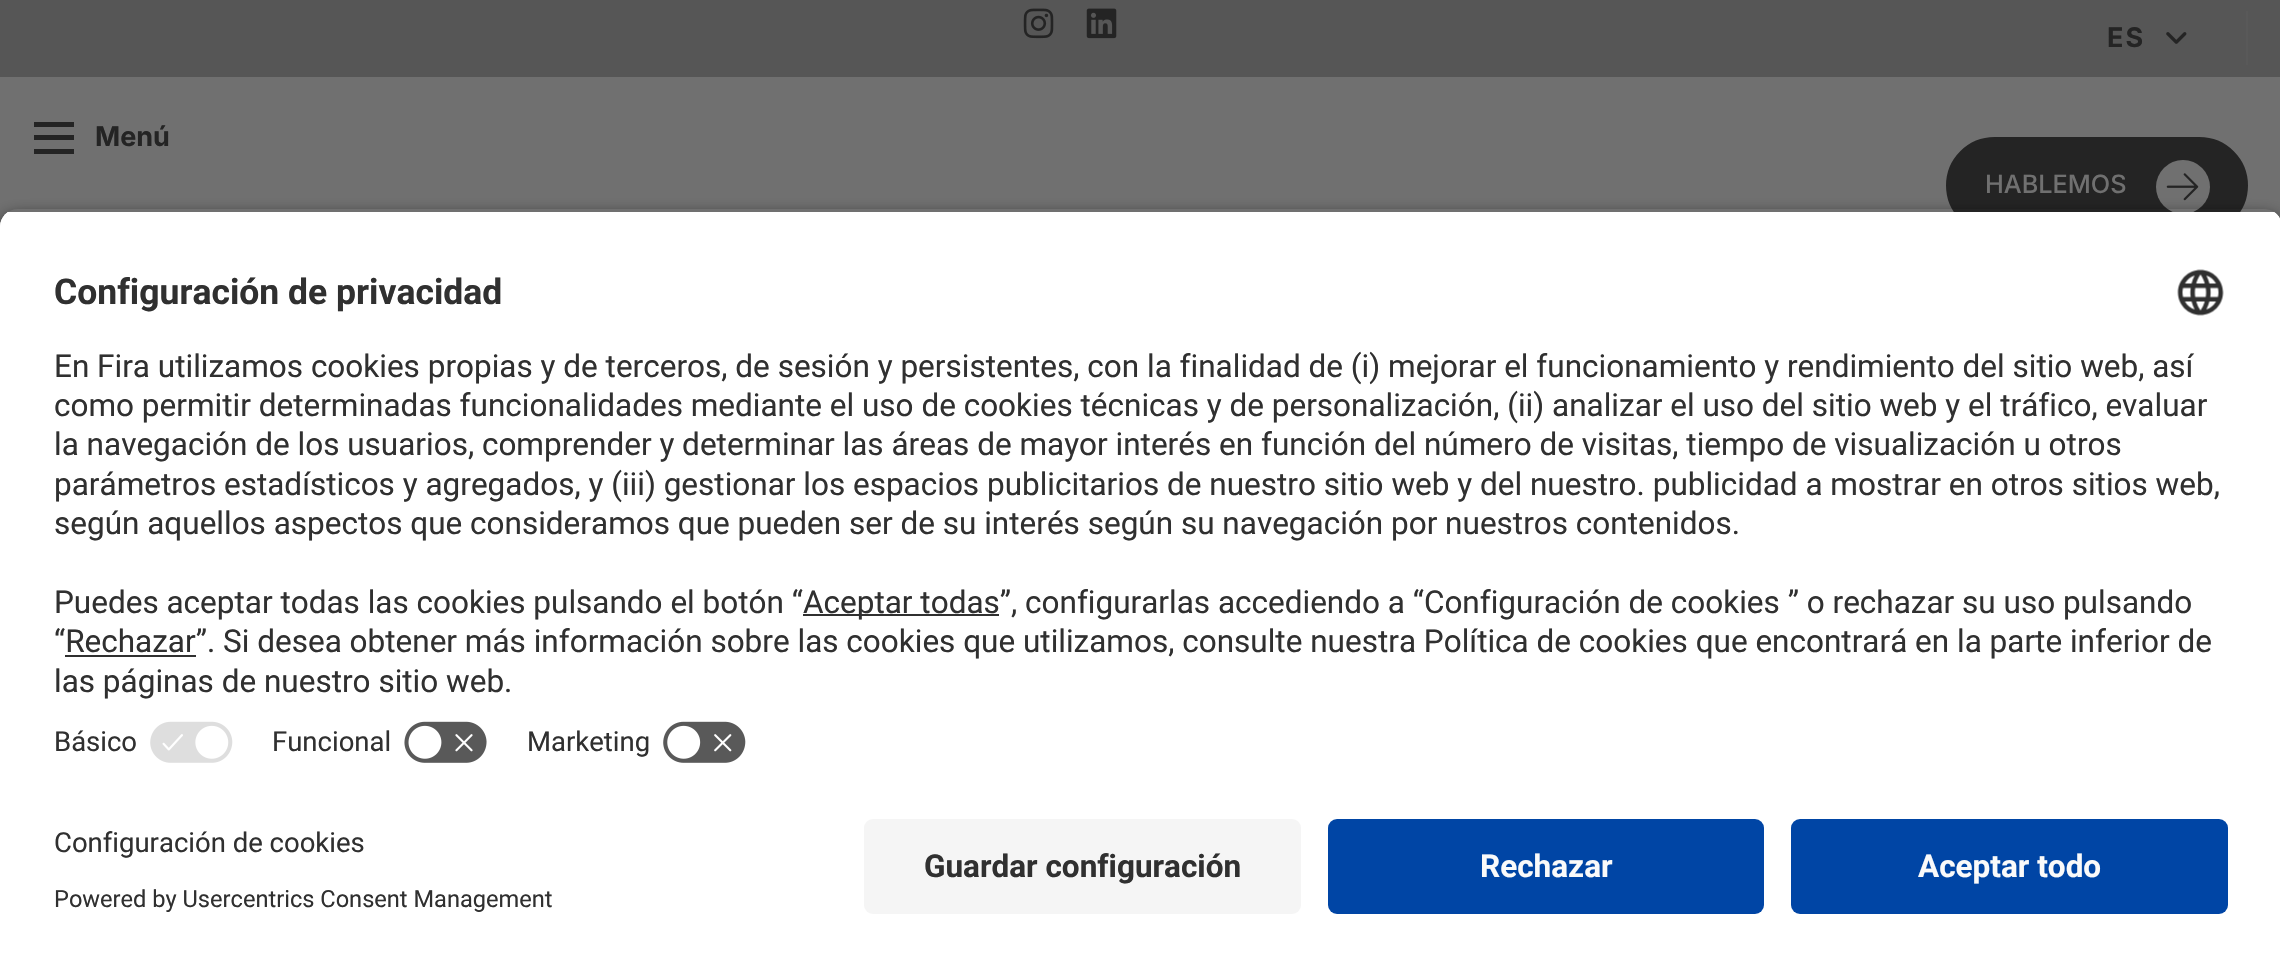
void draw(SkCanvas* canvas) {
    SkPaint paint;
    paint.setAntiAlias(true);
    auto face = [&](const char* family, int weight, float size, bool italic = false) {
        SkFontStyle style(weight, SkFontStyle::kNormal_Width,
            italic ? SkFontStyle::kItalic_Slant : SkFontStyle::kUpright_Slant);
        SkFont result(fontMgr->matchFamilyStyle(family, style), size);
        result.setSubpixel(true);
        return result;
    };
    auto write = [&](const char* s, float x, float y, const SkFont& font, SkColor color) {
        SkPaint ink(SkColor4f::FromColor(color));
        ink.setAntiAlias(true);
        canvas->drawString(s, x, y, font, ink);
    };
    auto writeSpaced = [&](const char* s, float x, float y, const SkFont& font, const SkPaint& ink, float letter, float word) {
        std::vector<SkGlyphID> glyphs(font.countText(s, strlen(s), SkTextEncoding::kUTF8));
        std::vector<float> xs(glyphs.size());
        font.textToGlyphs(s, strlen(s), SkTextEncoding::kUTF8, glyphs);
        font.getXPos(glyphs, xs, x);
        float extra = 0;
        for (size_t i = 0; i < glyphs.size(); i++) {
            xs[i] += extra;
            extra += letter + word * (glyphs[i] == font.unicharToGlyph(' '));
        }
        canvas->drawTextBlob(SkTextBlob::MakeFromPosHGlyphs(glyphs, xs, y, font), 0, 0, ink);
    };
    auto block = [&](float x, float y, float w, float h, SkColor color) {
        SkPaint ink(SkColor4f::FromColor(color));
        ink.setAntiAlias(true);
        canvas->drawRect(SkRect::MakeXYWH(x, y, w, h), ink);
    };
    auto card = [&](float x, float y, float w, float h, float radius, SkColor color) {
        SkPaint ink(SkColor4f::FromColor(color));
        ink.setAntiAlias(true);
        canvas->drawRoundRect(SkRect::MakeXYWH(x, y, w, h), radius, radius, ink);
    };
    auto paste = [&](const char* path, float x, float y, float w, float h) {
        auto image = SkImages::DeferredFromEncodedData(SkData::MakeFromFileName(path));
        canvas->drawImageRect(image, SkRect::MakeXYWH(x, y, w, h), SkSamplingOptions());
    };
    canvas->clear(SkColorSetRGB(112, 112, 112));
    block(0, 0, 2280, 77, SkColorSetRGB(86, 86, 86));
    paste("pic1.png", 1023, 8, 31, 31);
    paste("pic2.png", 1086, 8, 31, 31);
    block(2246, 11, 2, 54, SkColorSetRGB(89, 89, 89));
    auto kFont1 = face("Inter", 700, 27);
    paint.setColor(SkColorSetRGB(36, 36, 36));
    writeSpaced("ES", 2107, 47, kFont1, paint, 2, 0);
    paste("pic3.png", 2166, 32, 21, 12);
    block(34, 122, 40, 5, SkColorSetRGB(36, 36, 36));
    block(34, 135, 40, 5, SkColorSetRGB(36, 36, 36));
    block(34, 149, 40, 5, SkColorSetRGB(36, 36, 36));
    write("Menú", 95, 146, kFont1, SkColorSetRGB(36, 36, 36));
    canvas->drawRoundRect(SkRect::MakeXYWH(1948.5f, 139.5f, 297, 92), 46, 46, paint);
    paint.setStyle(SkPaint::kStroke_Style);
    paint.setStrokeWidth(5);
    canvas->drawRoundRect(SkRect::MakeXYWH(1948.5f, 139.5f, 297, 92), 46, 46, paint);
    auto kFont2 = face("Inter", 500, 25.25f);
    write("HABLEMOS", 1985, 193, kFont2, SkColorSetRGB(112, 112, 112));
    paint.setStyle(SkPaint::kFill_Style);
    paint.setColor(SkColorSetRGB(112, 112, 112));
    canvas->drawCircle(2183, 187, 27, paint);
    paste("pic4.png", 2166, 173, 33, 28);
    canvas->save();
    canvas->clipPath(SkPathBuilder(SkPathFillType::kEvenOdd).moveTo(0, 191).lineTo(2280, 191).lineTo(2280, 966).lineTo(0, 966).close().moveTo(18, 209).lineTo(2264, 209).cubicTo(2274, 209, 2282, 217, 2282, 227).lineTo(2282, 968).lineTo(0, 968).lineTo(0, 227).cubicTo(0, 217, 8, 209, 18, 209).close().detach(), true);
    paint.setColor(SkColorSetARGB(204, 0, 0, 0));
    paint.setMaskFilter(SkMaskFilter::MakeBlur(kNormal_SkBlurStyle, 8));
    canvas->drawRoundRect(SkRect::MakeXYWH(0, 216, 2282, 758), 18, 18, paint);
    paint.setMaskFilter(nullptr);
    canvas->restore();
    canvas->save();
    canvas->clipPath(SkPathBuilder().moveTo(18, 209).lineTo(2264, 209).cubicTo(2274, 209, 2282, 217, 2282, 227).lineTo(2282, 801).lineTo(0, 801).lineTo(0, 227).cubicTo(0, 217, 8, 209, 18, 209).close().detach(), true);
    block(0, 212, 2280, 589, SK_ColorWHITE);
    block(0, 212, 2280, 499, SK_ColorWHITE);
    canvas->restore();
    auto kFont3 = face("Roboto", 700, 35.5f);
    write("Configuración de privacidad", 54, 304, kFont3, SkColorSetRGB(48, 48, 48));
    paste("pic5.png", 2177, 269, 47, 47);
    auto kFont4 = face("Roboto", 400, 31.5f);
    write("En Fira utilizamos cookies propias y de terceros, de sesión y persistentes, con la finalidad de (i) mejorar el funcionamiento y rendimiento del sitio web, así", 54, 377, kFont4, SkColorSetRGB(48, 48, 48));
    write("como permitir determinadas funcionalidades mediante el uso de cookies técnicas y de personalización, (ii) analizar el uso del sitio web y el tráfico, evaluar", 54, 416, kFont4, SkColorSetRGB(48, 48, 48));
    write("la navegación de los usuarios, comprender y determinar las áreas de mayor interés en función del número de visitas, tiempo de visualización u otros", 54, 455, kFont4, SkColorSetRGB(48, 48, 48));
    write("parámetros estadísticos y agregados, y (iii) gestionar los espacios publicitarios de nuestro sitio web y del nuestro. publicidad a mostrar en otros sitios web,", 54, 495, kFont4, SkColorSetRGB(48, 48, 48));
    write("según aquellos aspectos que consideramos que pueden ser de su interés según su navegación por nuestros contenidos.", 54, 534, kFont4, SkColorSetRGB(48, 48, 48));
    write("Puedes aceptar todas las cookies pulsando el botón “", 54, 613, kFont4, SkColorSetRGB(48, 48, 48));
    block(803, 614, 196, 2, SkColorSetRGB(48, 48, 48));
    write("Aceptar todas”, configurarlas accediendo a “Configuración de cookies ” o rechazar su uso pulsando", 803, 613, kFont4, SkColorSetRGB(48, 48, 48));
    write("“Rechazar”. Si desea obtener más información sobre las cookies que utilizamos, consulte nuestra Política de cookies que encontrará en la parte inferior de", 54, 652, kFont4, SkColorSetRGB(48, 48, 48));
    block(65, 655, 131, 2, SkColorSetRGB(48, 48, 48));
    write("las páginas de nuestro sitio web.", 54, 692, kFont4, SkColorSetRGB(48, 48, 48));
    auto kFont5 = face("Roboto", 400, 27.5f);
    write("Básico", 54, 751, kFont5, SkColorSetRGB(48, 48, 48));
    paste("pic6.png", 150, 721, 83, 42);
    write("Funcional", 272, 751, kFont5, SkColorSetRGB(48, 48, 48));
    paste("pic7.png", 404, 721, 83, 42);
    write("Marketing", 527, 751, kFont5, SkColorSetRGB(48, 48, 48));
    paste("pic8.png", 663, 721, 83, 42);
    block(0, 801, 2280, 165, SK_ColorWHITE);
    write("Configuración de cookies", 54, 852, kFont5, SkColorSetRGB(48, 48, 48));
    auto kFont6 = face("Roboto", 400, 23.6f);
    write("Powered by Usercentrics Consent Management", 54, 907, kFont6, SkColorSetRGB(48, 48, 48));
    card(864, 819, 437, 95, 9, SkColorSetRGB(245, 245, 245));
    auto kFont7 = face("Roboto", 700, 31.5f);
    write("Guardar configuración", 924, 877, kFont7, SkColorSetRGB(48, 48, 48));
    card(1328, 819, 436, 95, 9, SkColorSetRGB(0, 69, 165));
    write("Rechazar", 1480, 877, kFont7, SkColorSetRGB(250, 250, 250));
    card(1791, 819, 437, 95, 9, SkColorSetRGB(0, 69, 165));
    write("Aceptar todo", 1918, 877, kFont7, SkColorSetRGB(250, 250, 250));
}
